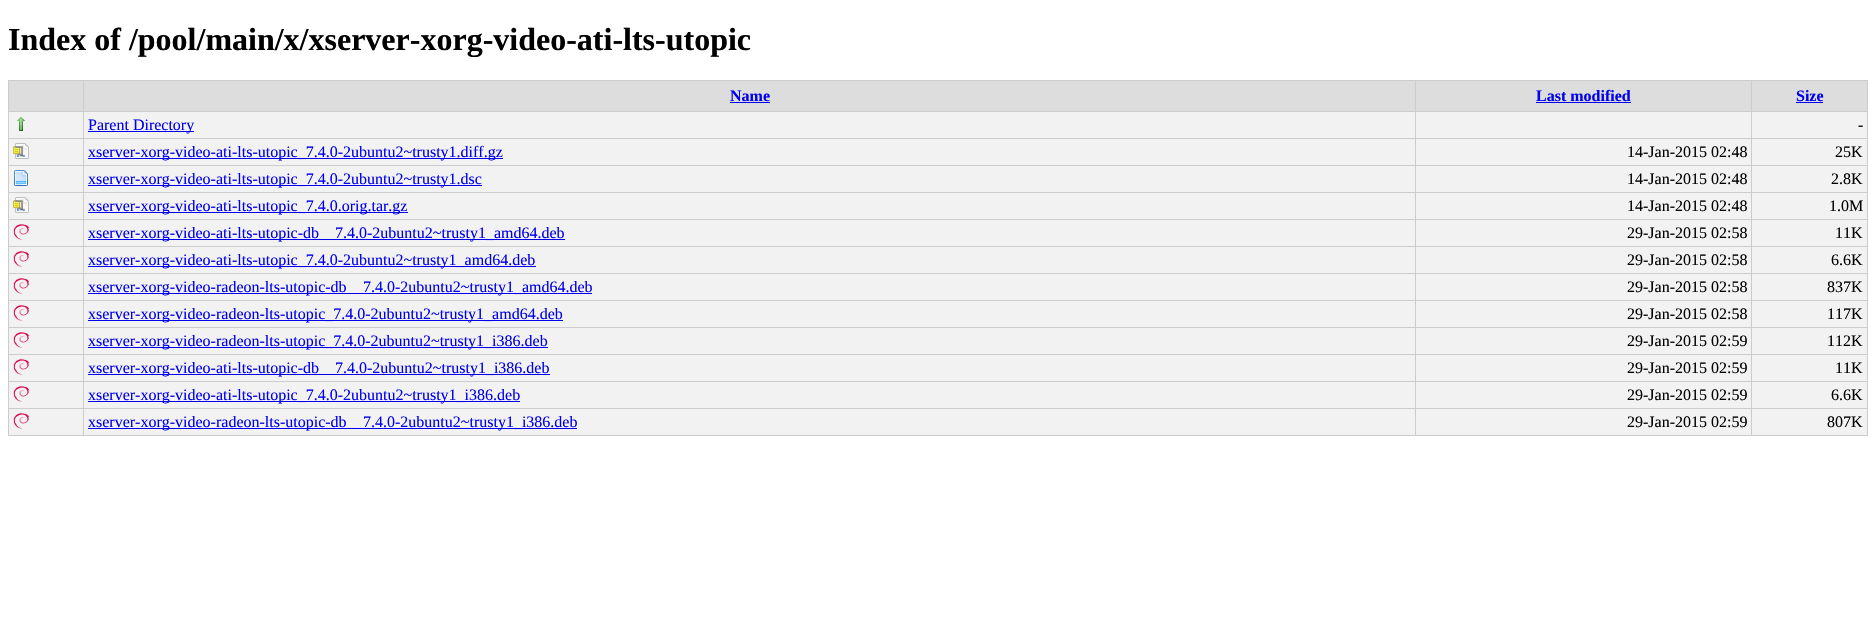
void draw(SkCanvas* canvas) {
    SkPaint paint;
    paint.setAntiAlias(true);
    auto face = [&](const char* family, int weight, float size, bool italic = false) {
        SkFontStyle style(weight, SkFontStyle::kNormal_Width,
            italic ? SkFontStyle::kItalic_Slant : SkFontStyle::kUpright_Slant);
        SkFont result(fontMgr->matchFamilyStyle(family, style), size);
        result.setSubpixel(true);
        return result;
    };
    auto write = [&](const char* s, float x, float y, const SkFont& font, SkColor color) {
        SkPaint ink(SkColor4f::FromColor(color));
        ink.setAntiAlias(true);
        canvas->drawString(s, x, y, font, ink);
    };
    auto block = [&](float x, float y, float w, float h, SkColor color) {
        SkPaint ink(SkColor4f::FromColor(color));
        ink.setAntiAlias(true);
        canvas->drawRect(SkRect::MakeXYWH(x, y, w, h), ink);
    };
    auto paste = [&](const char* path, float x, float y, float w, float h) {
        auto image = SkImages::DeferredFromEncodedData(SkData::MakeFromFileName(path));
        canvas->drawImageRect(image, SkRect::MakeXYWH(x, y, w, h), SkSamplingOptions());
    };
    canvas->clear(SK_ColorWHITE);
    auto kFont1 = face("Liberation Serif", 700, 32);
    write("Index of /pool/main/x/xserver-xorg-video-ati-lts-utopic", 8, 50, kFont1, SK_ColorBLACK);
    block(9, 81, 74, 30, SkColorSetRGB(221, 221, 221));
    block(1751, 80, 117, 1, SkColorSetRGB(204, 204, 204));
    block(1751, 111, 117, 1, SkColorSetRGB(204, 204, 204));
    block(9, 112, 1858, 26, SkColorSetRGB(242, 242, 242));
    block(1751, 138, 117, 1, SkColorSetRGB(204, 204, 204));
    block(9, 139, 1858, 26, SkColorSetRGB(242, 242, 242));
    block(1751, 165, 117, 1, SkColorSetRGB(204, 204, 204));
    block(9, 166, 1858, 26, SkColorSetRGB(242, 242, 242));
    block(1751, 192, 117, 1, SkColorSetRGB(204, 204, 204));
    block(9, 193, 1858, 26, SkColorSetRGB(242, 242, 242));
    block(1751, 219, 117, 1, SkColorSetRGB(204, 204, 204));
    block(9, 220, 1858, 26, SkColorSetRGB(242, 242, 242));
    block(1751, 246, 117, 1, SkColorSetRGB(204, 204, 204));
    block(9, 247, 1858, 26, SkColorSetRGB(242, 242, 242));
    block(1751, 273, 117, 1, SkColorSetRGB(204, 204, 204));
    block(9, 274, 1858, 26, SkColorSetRGB(242, 242, 242));
    block(1751, 300, 117, 1, SkColorSetRGB(204, 204, 204));
    block(9, 301, 1858, 26, SkColorSetRGB(242, 242, 242));
    block(1751, 327, 117, 1, SkColorSetRGB(204, 204, 204));
    block(9, 328, 1858, 26, SkColorSetRGB(242, 242, 242));
    block(1751, 354, 117, 1, SkColorSetRGB(204, 204, 204));
    block(9, 355, 1858, 26, SkColorSetRGB(242, 242, 242));
    block(1751, 381, 117, 1, SkColorSetRGB(204, 204, 204));
    block(9, 382, 1858, 26, SkColorSetRGB(242, 242, 242));
    block(1751, 408, 117, 1, SkColorSetRGB(204, 204, 204));
    block(9, 409, 1858, 26, SkColorSetRGB(242, 242, 242));
    block(1867, 408, 1, 28, SkColorSetRGB(204, 204, 204));
    block(1751, 435, 117, 1, SkColorSetRGB(204, 204, 204));
    block(1751, 408, 1, 28, SkColorSetRGB(204, 204, 204));
    block(1415, 408, 337, 1, SkColorSetRGB(204, 204, 204));
    block(1751, 381, 1, 28, SkColorSetRGB(204, 204, 204));
    block(1415, 381, 337, 1, SkColorSetRGB(204, 204, 204));
    block(1751, 354, 1, 28, SkColorSetRGB(204, 204, 204));
    block(1415, 354, 337, 1, SkColorSetRGB(204, 204, 204));
    block(1751, 327, 1, 28, SkColorSetRGB(204, 204, 204));
    block(1415, 327, 337, 1, SkColorSetRGB(204, 204, 204));
    block(1751, 300, 1, 28, SkColorSetRGB(204, 204, 204));
    block(1415, 300, 337, 1, SkColorSetRGB(204, 204, 204));
    block(1751, 273, 1, 28, SkColorSetRGB(204, 204, 204));
    block(1415, 273, 337, 1, SkColorSetRGB(204, 204, 204));
    block(1751, 246, 1, 28, SkColorSetRGB(204, 204, 204));
    block(1415, 246, 337, 1, SkColorSetRGB(204, 204, 204));
    block(1751, 219, 1, 28, SkColorSetRGB(204, 204, 204));
    block(1415, 219, 337, 1, SkColorSetRGB(204, 204, 204));
    block(1751, 192, 1, 28, SkColorSetRGB(204, 204, 204));
    block(1415, 192, 337, 1, SkColorSetRGB(204, 204, 204));
    block(1751, 165, 1, 28, SkColorSetRGB(204, 204, 204));
    block(1415, 165, 337, 1, SkColorSetRGB(204, 204, 204));
    block(1751, 138, 1, 28, SkColorSetRGB(204, 204, 204));
    block(1415, 138, 337, 1, SkColorSetRGB(204, 204, 204));
    block(1751, 111, 1, 28, SkColorSetRGB(204, 204, 204));
    block(1415, 111, 337, 1, SkColorSetRGB(204, 204, 204));
    block(1751, 80, 1, 32, SkColorSetRGB(204, 204, 204));
    block(1415, 80, 337, 1, SkColorSetRGB(204, 204, 204));
    block(1415, 435, 337, 1, SkColorSetRGB(204, 204, 204));
    block(1415, 408, 1, 28, SkColorSetRGB(204, 204, 204));
    block(83, 408, 1333, 1, SkColorSetRGB(204, 204, 204));
    block(1415, 381, 1, 28, SkColorSetRGB(204, 204, 204));
    block(83, 381, 1333, 1, SkColorSetRGB(204, 204, 204));
    block(1415, 354, 1, 28, SkColorSetRGB(204, 204, 204));
    block(83, 354, 1333, 1, SkColorSetRGB(204, 204, 204));
    block(1415, 327, 1, 28, SkColorSetRGB(204, 204, 204));
    block(83, 327, 1333, 1, SkColorSetRGB(204, 204, 204));
    block(1415, 300, 1, 28, SkColorSetRGB(204, 204, 204));
    block(83, 300, 1333, 1, SkColorSetRGB(204, 204, 204));
    block(1415, 273, 1, 28, SkColorSetRGB(204, 204, 204));
    block(83, 273, 1333, 1, SkColorSetRGB(204, 204, 204));
    block(1415, 246, 1, 28, SkColorSetRGB(204, 204, 204));
    block(83, 246, 1333, 1, SkColorSetRGB(204, 204, 204));
    block(1415, 219, 1, 28, SkColorSetRGB(204, 204, 204));
    block(83, 219, 1333, 1, SkColorSetRGB(204, 204, 204));
    block(1415, 192, 1, 28, SkColorSetRGB(204, 204, 204));
    block(83, 192, 1333, 1, SkColorSetRGB(204, 204, 204));
    block(1415, 165, 1, 28, SkColorSetRGB(204, 204, 204));
    block(83, 165, 1333, 1, SkColorSetRGB(204, 204, 204));
    block(1415, 138, 1, 28, SkColorSetRGB(204, 204, 204));
    block(83, 138, 1333, 1, SkColorSetRGB(204, 204, 204));
    block(1415, 111, 1, 28, SkColorSetRGB(204, 204, 204));
    block(83, 111, 1333, 1, SkColorSetRGB(204, 204, 204));
    block(1415, 80, 1, 32, SkColorSetRGB(204, 204, 204));
    block(83, 80, 1333, 1, SkColorSetRGB(204, 204, 204));
    block(83, 435, 1333, 1, SkColorSetRGB(204, 204, 204));
    block(83, 408, 1, 28, SkColorSetRGB(204, 204, 204));
    block(8, 408, 76, 1, SkColorSetRGB(204, 204, 204));
    block(83, 381, 1, 28, SkColorSetRGB(204, 204, 204));
    block(8, 381, 76, 1, SkColorSetRGB(204, 204, 204));
    block(83, 354, 1, 28, SkColorSetRGB(204, 204, 204));
    block(8, 354, 76, 1, SkColorSetRGB(204, 204, 204));
    block(83, 327, 1, 28, SkColorSetRGB(204, 204, 204));
    block(8, 327, 76, 1, SkColorSetRGB(204, 204, 204));
    block(83, 300, 1, 28, SkColorSetRGB(204, 204, 204));
    block(8, 300, 76, 1, SkColorSetRGB(204, 204, 204));
    block(83, 273, 1, 28, SkColorSetRGB(204, 204, 204));
    block(8, 273, 76, 1, SkColorSetRGB(204, 204, 204));
    block(83, 246, 1, 28, SkColorSetRGB(204, 204, 204));
    block(8, 246, 76, 1, SkColorSetRGB(204, 204, 204));
    block(83, 219, 1, 28, SkColorSetRGB(204, 204, 204));
    block(8, 219, 76, 1, SkColorSetRGB(204, 204, 204));
    block(83, 192, 1, 28, SkColorSetRGB(204, 204, 204));
    block(8, 192, 76, 1, SkColorSetRGB(204, 204, 204));
    block(83, 165, 1, 28, SkColorSetRGB(204, 204, 204));
    block(8, 165, 76, 1, SkColorSetRGB(204, 204, 204));
    block(83, 138, 1, 28, SkColorSetRGB(204, 204, 204));
    block(8, 138, 76, 1, SkColorSetRGB(204, 204, 204));
    block(83, 111, 1, 28, SkColorSetRGB(204, 204, 204));
    block(8, 111, 76, 1, SkColorSetRGB(204, 204, 204));
    block(83, 80, 1, 32, SkColorSetRGB(204, 204, 204));
    block(8, 80, 76, 1, SkColorSetRGB(204, 204, 204));
    block(8, 435, 76, 1, SkColorSetRGB(204, 204, 204));
    block(8, 408, 1, 28, SkColorSetRGB(204, 204, 204));
    block(8, 381, 1, 28, SkColorSetRGB(204, 204, 204));
    block(8, 354, 1, 28, SkColorSetRGB(204, 204, 204));
    block(8, 327, 1, 28, SkColorSetRGB(204, 204, 204));
    block(8, 300, 1, 28, SkColorSetRGB(204, 204, 204));
    block(8, 273, 1, 28, SkColorSetRGB(204, 204, 204));
    block(8, 246, 1, 28, SkColorSetRGB(204, 204, 204));
    block(8, 219, 1, 28, SkColorSetRGB(204, 204, 204));
    block(8, 192, 1, 28, SkColorSetRGB(204, 204, 204));
    block(8, 165, 1, 28, SkColorSetRGB(204, 204, 204));
    block(8, 138, 1, 28, SkColorSetRGB(204, 204, 204));
    block(8, 111, 1, 28, SkColorSetRGB(204, 204, 204));
    block(8, 80, 1, 32, SkColorSetRGB(204, 204, 204));
    block(84, 81, 1331, 30, SkColorSetRGB(221, 221, 221));
    auto kFont2 = face("Liberation Serif", 700, 16);
    write("Name", 730, 101, kFont2, SkColorSetRGB(0, 0, 238));
    block(730, 102, 40, 1, SkColorSetRGB(0, 0, 238));
    block(1416, 81, 335, 30, SkColorSetRGB(221, 221, 221));
    write("Last modified", 1536, 101, kFont2, SkColorSetRGB(0, 0, 238));
    block(1536, 102, 95, 1, SkColorSetRGB(0, 0, 238));
    block(1752, 81, 115, 30, SkColorSetRGB(221, 221, 221));
    block(1867, 381, 1, 28, SkColorSetRGB(204, 204, 204));
    block(1867, 354, 1, 28, SkColorSetRGB(204, 204, 204));
    block(1867, 327, 1, 28, SkColorSetRGB(204, 204, 204));
    block(1867, 300, 1, 28, SkColorSetRGB(204, 204, 204));
    block(1867, 273, 1, 28, SkColorSetRGB(204, 204, 204));
    block(1867, 246, 1, 28, SkColorSetRGB(204, 204, 204));
    block(1867, 219, 1, 28, SkColorSetRGB(204, 204, 204));
    block(1867, 192, 1, 28, SkColorSetRGB(204, 204, 204));
    block(1867, 165, 1, 28, SkColorSetRGB(204, 204, 204));
    block(1867, 138, 1, 28, SkColorSetRGB(204, 204, 204));
    block(1867, 111, 1, 28, SkColorSetRGB(204, 204, 204));
    block(1867, 80, 1, 32, SkColorSetRGB(204, 204, 204));
    write("Size", 1796, 101, kFont2, SkColorSetRGB(0, 0, 238));
    block(1796, 102, 27, 1, SkColorSetRGB(0, 0, 238));
    paste("pic1.png", 17, 117, 8, 14);
    block(88, 131, 106, 1, SkColorSetRGB(0, 0, 238));
    auto kFont3 = face("Liberation Serif", 400, 16);
    write("Parent Directory", 88, 130, kFont3, SkColorSetRGB(0, 0, 238));
    write("-", 1858, 130, kFont3, SK_ColorBLACK);
    paste("pic2.png", 13, 143, 16, 16);
    block(88, 158, 415, 1, SkColorSetRGB(0, 0, 238));
    write("xserver-xorg-video-ati-lts-utopic_7.4.0-2ubuntu2~trusty1.diff.gz", 88, 157, kFont3, SkColorSetRGB(0, 0, 238));
    write("14-Jan-2015 02:48", 1627, 157, kFont3, SK_ColorBLACK);
    write("25K", 1835, 157, kFont3, SK_ColorBLACK);
    paste("pic3.png", 14, 170, 14, 16);
    block(88, 185, 394, 1, SkColorSetRGB(0, 0, 238));
    write("xserver-xorg-video-ati-lts-utopic_7.4.0-2ubuntu2~trusty1.dsc", 88, 184, kFont3, SkColorSetRGB(0, 0, 238));
    write("14-Jan-2015 02:48", 1627, 184, kFont3, SK_ColorBLACK);
    write("2.8K", 1831, 184, kFont3, SK_ColorBLACK);
    paste("pic2.png", 13, 197, 16, 16);
    block(88, 212, 320, 1, SkColorSetRGB(0, 0, 238));
    write("xserver-xorg-video-ati-lts-utopic_7.4.0.orig.tar.gz", 88, 211, kFont3, SkColorSetRGB(0, 0, 238));
    write("14-Jan-2015 02:48", 1627, 211, kFont3, SK_ColorBLACK);
    write("1.0M", 1829, 211, kFont3, SK_ColorBLACK);
    paste("pic4.png", 13, 224, 16, 16);
    block(88, 239, 477, 1, SkColorSetRGB(0, 0, 238));
    write("xserver-xorg-video-ati-lts-utopic-db", 88, 238, kFont3, SkColorSetRGB(0, 0, 238));
    write("7.4.0-2ubuntu2~trusty1_amd64.deb", 335, 238, kFont3, SkColorSetRGB(0, 0, 238));
    write("29-Jan-2015 02:58", 1627, 238, kFont3, SK_ColorBLACK);
    write("11K", 1835, 238, kFont3, SK_ColorBLACK);
    paste("pic4.png", 13, 251, 16, 16);
    block(88, 266, 448, 1, SkColorSetRGB(0, 0, 238));
    write("xserver-xorg-video-ati-lts-utopic_7.4.0-2ubuntu2~trusty1_amd64.deb", 88, 265, kFont3, SkColorSetRGB(0, 0, 238));
    write("29-Jan-2015 02:58", 1627, 265, kFont3, SK_ColorBLACK);
    write("6.6K", 1831, 265, kFont3, SK_ColorBLACK);
    paste("pic4.png", 13, 278, 16, 16);
    block(88, 293, 504, 1, SkColorSetRGB(0, 0, 238));
    write("xserver-xorg-video-radeon-lts-utopic-db", 88, 292, kFont3, SkColorSetRGB(0, 0, 238));
    write("7.4.0-2ubuntu2~trusty1_amd64.deb", 363, 292, kFont3, SkColorSetRGB(0, 0, 238));
    write("29-Jan-2015 02:58", 1627, 292, kFont3, SK_ColorBLACK);
    write("837K", 1827, 292, kFont3, SK_ColorBLACK);
    paste("pic4.png", 13, 305, 16, 16);
    block(88, 320, 475, 1, SkColorSetRGB(0, 0, 238));
    write("xserver-xorg-video-radeon-lts-utopic_7.4.0-2ubuntu2~trusty1_amd64.deb", 88, 319, kFont3, SkColorSetRGB(0, 0, 238));
    write("29-Jan-2015 02:58", 1627, 319, kFont3, SK_ColorBLACK);
    write("117K", 1827, 319, kFont3, SK_ColorBLACK);
    paste("pic4.png", 13, 332, 16, 16);
    block(88, 347, 460, 1, SkColorSetRGB(0, 0, 238));
    write("xserver-xorg-video-radeon-lts-utopic_7.4.0-2ubuntu2~trusty1_i386.deb", 88, 346, kFont3, SkColorSetRGB(0, 0, 238));
    write("29-Jan-2015 02:59", 1627, 346, kFont3, SK_ColorBLACK);
    write("112K", 1827, 346, kFont3, SK_ColorBLACK);
    paste("pic4.png", 13, 359, 16, 16);
    block(88, 374, 462, 1, SkColorSetRGB(0, 0, 238));
    write("xserver-xorg-video-ati-lts-utopic-db", 88, 373, kFont3, SkColorSetRGB(0, 0, 238));
    write("7.4.0-2ubuntu2~trusty1_i386.deb", 335, 373, kFont3, SkColorSetRGB(0, 0, 238));
    write("29-Jan-2015 02:59", 1627, 373, kFont3, SK_ColorBLACK);
    write("11K", 1835, 373, kFont3, SK_ColorBLACK);
    paste("pic4.png", 13, 386, 16, 16);
    block(88, 401, 432, 1, SkColorSetRGB(0, 0, 238));
    write("xserver-xorg-video-ati-lts-utopic_7.4.0-2ubuntu2~trusty1_i386.deb", 88, 400, kFont3, SkColorSetRGB(0, 0, 238));
    write("29-Jan-2015 02:59", 1627, 400, kFont3, SK_ColorBLACK);
    write("6.6K", 1831, 400, kFont3, SK_ColorBLACK);
    paste("pic4.png", 13, 413, 16, 16);
    block(88, 428, 489, 1, SkColorSetRGB(0, 0, 238));
    write("xserver-xorg-video-radeon-lts-utopic-db", 88, 427, kFont3, SkColorSetRGB(0, 0, 238));
    write("7.4.0-2ubuntu2~trusty1_i386.deb", 363, 427, kFont3, SkColorSetRGB(0, 0, 238));
    write("29-Jan-2015 02:59", 1627, 427, kFont3, SK_ColorBLACK);
    write("807K", 1827, 427, kFont3, SK_ColorBLACK);
}
